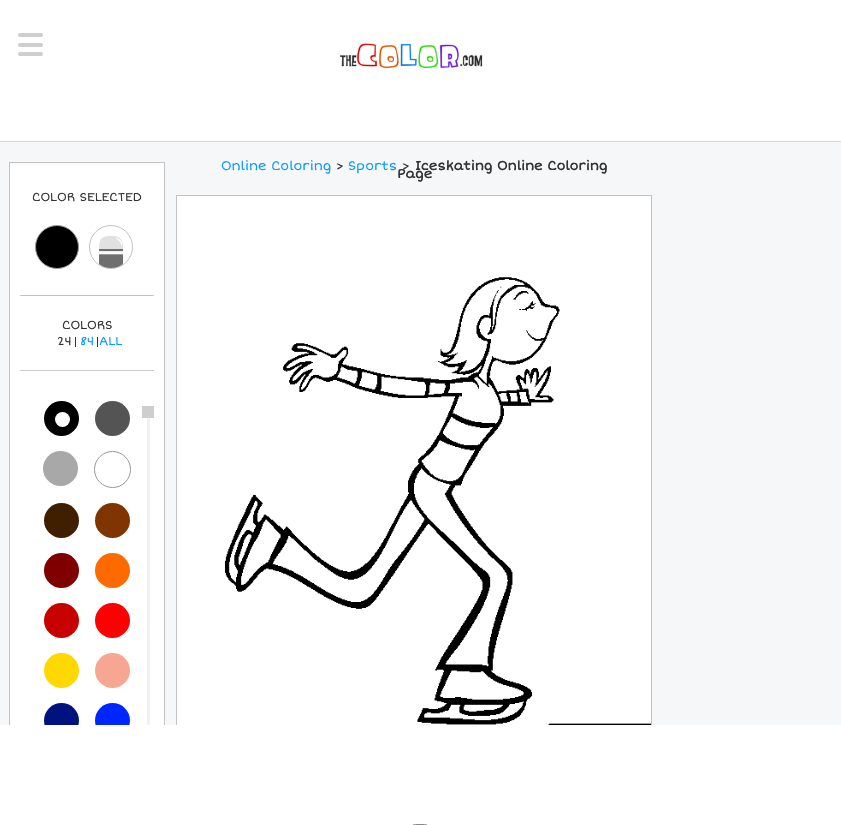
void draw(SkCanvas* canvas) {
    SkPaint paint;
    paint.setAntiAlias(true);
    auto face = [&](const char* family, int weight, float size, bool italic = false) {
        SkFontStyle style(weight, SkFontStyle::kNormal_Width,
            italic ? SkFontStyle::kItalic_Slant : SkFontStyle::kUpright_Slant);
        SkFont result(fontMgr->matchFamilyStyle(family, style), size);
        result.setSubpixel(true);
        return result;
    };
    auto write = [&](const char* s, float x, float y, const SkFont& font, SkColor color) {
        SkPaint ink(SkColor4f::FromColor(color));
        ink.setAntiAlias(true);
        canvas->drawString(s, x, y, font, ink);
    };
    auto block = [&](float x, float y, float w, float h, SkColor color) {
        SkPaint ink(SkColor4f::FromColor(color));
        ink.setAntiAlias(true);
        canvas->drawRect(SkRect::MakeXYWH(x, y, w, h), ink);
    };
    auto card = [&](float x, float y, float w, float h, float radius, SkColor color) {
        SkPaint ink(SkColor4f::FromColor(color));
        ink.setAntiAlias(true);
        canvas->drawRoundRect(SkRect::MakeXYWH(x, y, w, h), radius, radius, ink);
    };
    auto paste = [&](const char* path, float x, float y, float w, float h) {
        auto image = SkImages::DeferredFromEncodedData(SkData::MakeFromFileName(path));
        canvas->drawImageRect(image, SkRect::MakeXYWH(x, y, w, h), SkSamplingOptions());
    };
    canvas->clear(SkColorSetRGB(246, 247, 249));
    block(0, 0, 841, 141, SK_ColorWHITE);
    block(0, 141, 841, 1, SkColorSetRGB(215, 215, 215));
    card(18, 33, 25, 4, 2, SkColorSetRGB(206, 206, 206));
    card(18, 43, 25, 4, 2, SkColorSetRGB(206, 206, 206));
    card(18, 52, 25, 4, 2, SkColorSetRGB(206, 206, 206));
    paste("pic1.png", 339, 43, 144, 26);
    auto kFont1 = face("Short Stack", 400, 13);
    write("Online Coloring", 221, 170, kFont1, SkColorSetRGB(9, 154, 255));
    write(">", 336, 170, kFont1, SkColorSetRGB(51, 51, 51));
    write("Sports", 348, 170, kFont1, SkColorSetRGB(9, 154, 255));
    write(">", 402, 170, kFont1, SkColorSetRGB(51, 51, 51));
    auto kFont2 = face("Short Stack", 700, 13);
    write("Iceskating Online Coloring", 415, 170, kFont2, SkColorSetRGB(51, 51, 51));
    write("Page", 397, 178, kFont2, SkColorSetRGB(51, 51, 51));
    block(177, 196, 474, 529, SK_ColorWHITE);
    paint.setStyle(SkPaint::kStroke_Style);
    paint.setStrokeWidth(1);
    paint.setColor(SkColorSetRGB(195, 195, 195));
    canvas->drawRect(SkRect::MakeXYWH(176.5f, 195.5f, 475, 602), paint);
    paste("pic2.png", 225, 277, 426, 448);
    block(10, 163, 154, 562, SK_ColorWHITE);
    canvas->drawRect(SkRect::MakeXYWH(9.5f, 162.5f, 155, 648), paint);
    auto kFont3 = face("Short Stack", 400, 12);
    write("COLOR SELECTED", 32, 201, kFont3, SkColorSetRGB(51, 51, 51));
    block(20, 295, 134, 1, SkColorSetRGB(195, 195, 195));
    paint.setStyle(SkPaint::kFill_Style);
    paint.setColor(SK_ColorBLACK);
    canvas->drawCircle(57, 247, 21.5f, paint);
    paint.setStyle(SkPaint::kStroke_Style);
    paint.setColor(SkColorSetRGB(153, 153, 153));
    canvas->drawCircle(57, 247, 21.5f, paint);
    paint.setColor(SkColorSetRGB(195, 195, 195));
    canvas->drawCircle(111, 247, 21.5f, paint);
    paste("pic3.png", 99, 236, 24, 32);
    block(20, 370, 134, 1, SkColorSetRGB(206, 206, 206));
    write("COLORS", 62, 329, kFont3, SkColorSetRGB(51, 51, 51));
    write("24", 57, 345, kFont3, SkColorSetRGB(51, 51, 51));
    block(75, 337, 1, 10, SkColorSetRGB(51, 51, 51));
    write("84", 80, 345, kFont3, SkColorSetRGB(9, 154, 255));
    block(97, 337, 1, 10, SkColorSetRGB(51, 51, 51));
    write("ALL", 99, 345, kFont3, SkColorSetRGB(9, 154, 255));
    paint.setStyle(SkPaint::kFill_Style);
    paint.setColor(SK_ColorBLACK);
    canvas->drawCircle(61.5f, 418.5f, 17.5f, paint);
    paint.setColor(SK_ColorWHITE);
    canvas->drawCircle(62.5f, 419.5f, 7.5f, paint);
    paint.setColor(SkColorSetRGB(84, 84, 84));
    canvas->drawCircle(112.5f, 418.5f, 17.5f, paint);
    paint.setColor(SkColorSetRGB(168, 168, 168));
    canvas->drawCircle(60.5f, 468.5f, 17.5f, paint);
    paint.setStyle(SkPaint::kStroke_Style);
    paint.setColor(SkColorSetRGB(153, 153, 153));
    canvas->drawCircle(112.5f, 469.5f, 18, paint);
    paint.setStyle(SkPaint::kFill_Style);
    paint.setColor(SkColorSetRGB(64, 31, 0));
    canvas->drawCircle(61.5f, 520.5f, 17.5f, paint);
    paint.setColor(SkColorSetRGB(128, 52, 0));
    canvas->drawCircle(112.5f, 520.5f, 17.5f, paint);
    paint.setColor(SkColorSetRGB(128, 0, 1));
    canvas->drawCircle(61.5f, 570.5f, 17.5f, paint);
    paint.setColor(SkColorSetRGB(254, 106, 0));
    canvas->drawCircle(112.5f, 570.5f, 17.5f, paint);
    paint.setColor(SkColorSetRGB(199, 0, 0));
    canvas->drawCircle(61.5f, 620.5f, 17.5f, paint);
    paint.setColor(SkColorSetRGB(254, 0, 0));
    canvas->drawCircle(112.5f, 620.5f, 17.5f, paint);
    paint.setColor(SkColorSetRGB(255, 216, 0));
    canvas->drawCircle(61.5f, 670.5f, 17.5f, paint);
    paint.setColor(SkColorSetRGB(247, 166, 145));
    canvas->drawCircle(112.5f, 670.5f, 17.5f, paint);
    paint.setColor(SkColorSetRGB(0, 18, 128));
    canvas->drawCircle(61.5f, 720.5f, 17.5f, paint);
    paint.setColor(SkColorSetRGB(0, 38, 255));
    canvas->drawCircle(112.5f, 720.5f, 17.5f, paint);
    block(147, 418, 3, 307, SkColorSetRGB(241, 241, 241));
    block(142, 406, 12, 12, SkColorSetRGB(206, 206, 206));
    block(0, 725, 841, 100, SK_ColorWHITE);
    paint.setStyle(SkPaint::kStroke_Style);
    paint.setColor(SkColorSetRGB(249, 249, 249));
    canvas->drawRoundRect(SkRect::MakeXYWH(409.5f, 824.5f, 21, 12), 10.5f, 10.5f, paint);
    paint.setColor(SkColorSetRGB(136, 136, 136));
    canvas->drawRoundRect(SkRect::MakeXYWH(409.5f, 824.5f, 21, 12), 10.5f, 10.5f, paint);
}
